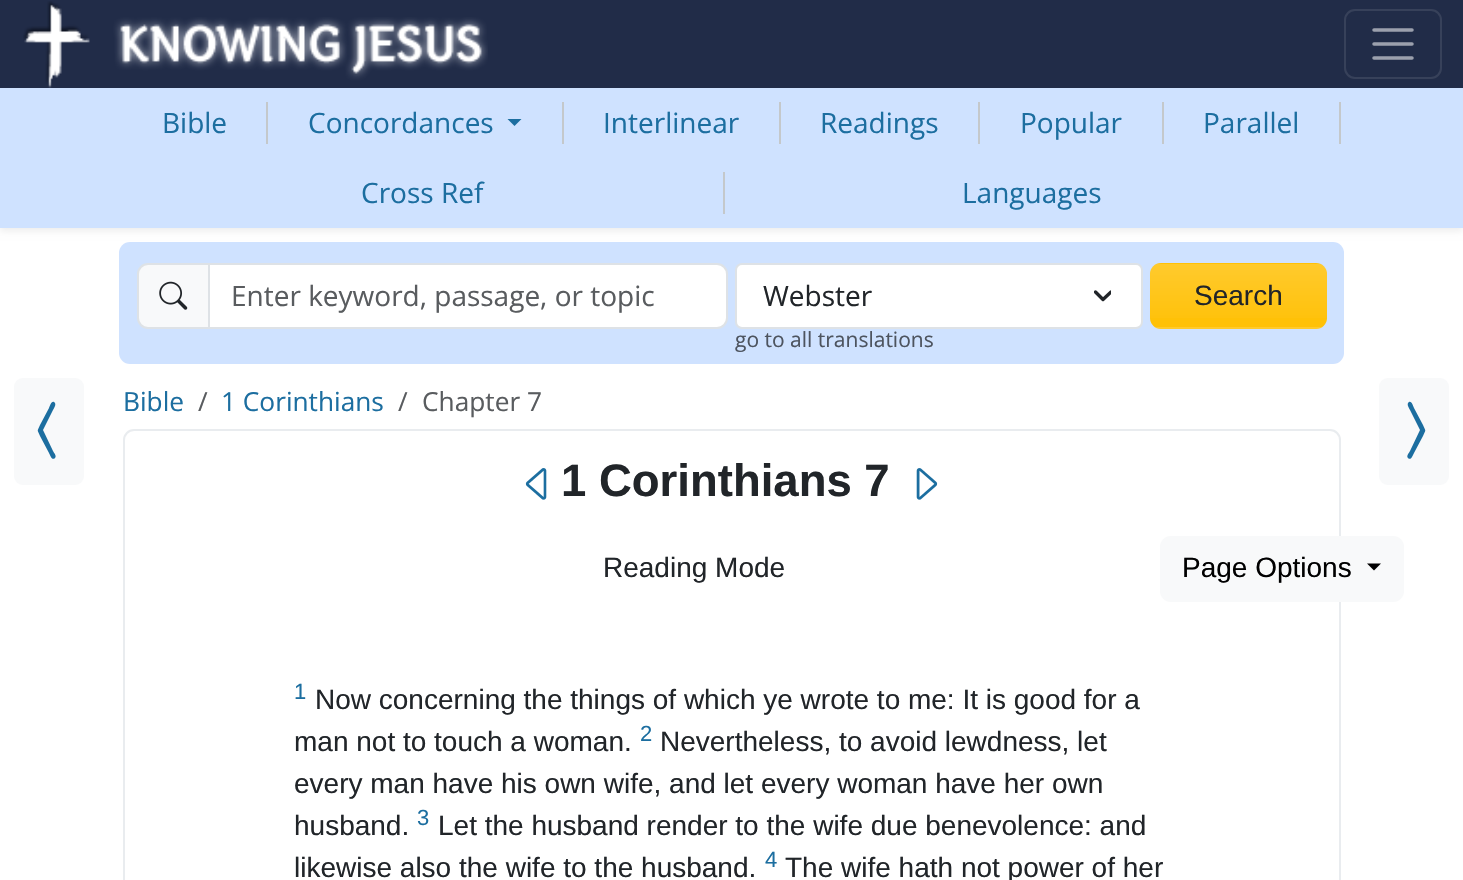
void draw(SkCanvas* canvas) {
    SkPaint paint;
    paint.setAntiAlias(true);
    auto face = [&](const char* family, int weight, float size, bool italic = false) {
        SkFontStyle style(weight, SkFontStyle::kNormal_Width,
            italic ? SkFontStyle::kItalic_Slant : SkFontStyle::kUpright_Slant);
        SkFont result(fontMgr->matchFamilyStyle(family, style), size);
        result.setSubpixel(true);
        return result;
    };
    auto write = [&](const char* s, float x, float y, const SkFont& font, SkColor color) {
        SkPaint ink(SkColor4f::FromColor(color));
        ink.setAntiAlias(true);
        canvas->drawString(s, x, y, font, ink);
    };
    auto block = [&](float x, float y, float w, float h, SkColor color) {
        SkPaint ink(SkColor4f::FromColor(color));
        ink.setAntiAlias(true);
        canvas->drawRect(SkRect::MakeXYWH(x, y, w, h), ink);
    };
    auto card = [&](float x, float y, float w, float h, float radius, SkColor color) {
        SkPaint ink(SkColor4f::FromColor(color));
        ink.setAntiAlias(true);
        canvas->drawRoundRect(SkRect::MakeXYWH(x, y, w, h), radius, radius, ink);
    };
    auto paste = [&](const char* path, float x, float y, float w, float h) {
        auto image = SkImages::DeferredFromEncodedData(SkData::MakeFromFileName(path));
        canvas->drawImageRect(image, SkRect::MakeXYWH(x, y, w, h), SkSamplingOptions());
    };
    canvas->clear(SK_ColorWHITE);
    paint.setColor(SkColorSetARGB(18, 0, 0, 0));
    paint.setMaskFilter(SkMaskFilter::MakeBlur(kNormal_SkBlurStyle, 3.5f));
    canvas->drawRect(SkRect::MakeXYWH(0, 91, 1463, 140), paint);
    paint.setMaskFilter(nullptr);
    block(0, 0, 1463, 88, SkColorSetRGB(33, 44, 72));
    paste("pic1.png", 23, 1, 465, 87);
    paint.setStyle(SkPaint::kStroke_Style);
    paint.setStrokeWidth(2);
    paint.setColor(SkColorSetRGB(55, 65, 90));
    canvas->drawRoundRect(SkRect::MakeXYWH(1345, 10, 96, 68), 10, 10, paint);
    paint.setStrokeWidth(3.5f);
    paint.setStrokeCap(SkPaint::kRound_Cap);
    paint.setColor(SkColorSetRGB(155, 160, 173));
    canvas->drawPath(SkPathBuilder().moveTo(1374, 30).lineTo(1412, 30).moveTo(1374, 44).lineTo(1412, 44).moveTo(1374, 58).lineTo(1412, 58).detach(), paint);
    block(0, 88, 1463, 140, SkColorSetRGB(207, 226, 255));
    auto kFont1 = face("Open Sans", 400, 28);
    write("Bible", 162, 133, kFont1, SkColorSetRGB(28, 110, 160));
    block(266, 102, 2, 42, SkColorSetRGB(196, 200, 203));
    write("Concordances", 308, 133, kFont1, SkColorSetRGB(28, 110, 160));
    paint.setStyle(SkPaint::kFill_Style);
    paint.setColor(SkColorSetRGB(28, 110, 160));
    canvas->drawPath(SkPathBuilder().moveTo(507.5f, 119).lineTo(521.5f, 119).lineTo(514.5f, 126).close().detach(), paint);
    block(562, 102, 2, 42, SkColorSetRGB(196, 200, 203));
    write("Interlinear", 603, 133, kFont1, SkColorSetRGB(28, 110, 160));
    block(779, 102, 2, 42, SkColorSetRGB(196, 200, 203));
    write("Readings", 820, 133, kFont1, SkColorSetRGB(28, 110, 160));
    block(978, 102, 2, 42, SkColorSetRGB(196, 200, 203));
    write("Popular", 1020, 133, kFont1, SkColorSetRGB(28, 110, 160));
    block(1162, 102, 2, 42, SkColorSetRGB(196, 200, 203));
    write("Parallel", 1203, 133, kFont1, SkColorSetRGB(28, 110, 160));
    block(1339, 102, 2, 42, SkColorSetRGB(196, 200, 203));
    write("Cross Ref", 361, 203, kFont1, SkColorSetRGB(28, 110, 160));
    block(723, 172, 2, 42, SkColorSetRGB(196, 200, 203));
    write("Languages", 962, 203, kFont1, SkColorSetRGB(28, 110, 160));
    card(119, 242, 1225, 122, 11, SkColorSetRGB(207, 226, 255));
    paint.setColor(SkColorSetRGB(248, 249, 250));
    canvas->drawPath(SkPathBuilder().moveTo(148, 264).lineTo(209, 264).lineTo(209, 328).lineTo(148, 328).cubicTo(142.5f, 328, 138, 323.5f, 138, 318).lineTo(138, 274).cubicTo(138, 268.5f, 142.5f, 264, 148, 264).close().detach(), paint);
    paint.setStyle(SkPaint::kStroke_Style);
    paint.setStrokeWidth(2);
    paint.setStrokeCap(SkPaint::kButt_Cap);
    paint.setColor(SkColorSetRGB(222, 226, 230));
    canvas->drawPath(SkPathBuilder().moveTo(148, 264).lineTo(209, 264).lineTo(209, 328).lineTo(148, 328).cubicTo(142.5f, 328, 138, 323.5f, 138, 318).lineTo(138, 274).cubicTo(138, 268.5f, 142.5f, 264, 148, 264).close().detach(), paint);
    paste("pic2.png", 159, 281, 29, 29);
    paint.setStyle(SkPaint::kFill_Style);
    paint.setColor(SK_ColorWHITE);
    canvas->drawPath(SkPathBuilder().moveTo(209, 264).lineTo(717, 264).cubicTo(722.5f, 264, 727, 268.5f, 727, 274).lineTo(727, 318).cubicTo(727, 323.5f, 722.5f, 328, 717, 328).lineTo(209, 328).close().detach(), paint);
    paint.setStyle(SkPaint::kStroke_Style);
    paint.setColor(SkColorSetRGB(222, 226, 230));
    canvas->drawPath(SkPathBuilder().moveTo(209, 264).lineTo(717, 264).cubicTo(722.5f, 264, 727, 268.5f, 727, 274).lineTo(727, 318).cubicTo(727, 323.5f, 722.5f, 328, 717, 328).lineTo(209, 328).close().detach(), paint);
    write("Enter keyword, passage, or topic", 231, 306, kFont1, SkColorSetRGB(89, 92, 95));
    paint.setStyle(SkPaint::kFill_Style);
    paint.setColor(SK_ColorWHITE);
    canvas->drawRoundRect(SkRect::MakeXYWH(736, 264, 406, 64), 6, 6, paint);
    paint.setStyle(SkPaint::kStroke_Style);
    paint.setColor(SkColorSetRGB(222, 226, 230));
    canvas->drawRoundRect(SkRect::MakeXYWH(736, 264, 406, 64), 6, 6, paint);
    write("Webster", 763, 306, kFont1, SkColorSetRGB(33, 37, 41));
    canvas->save();
    canvas->clipRect(SkRect::MakeXYWH(1094, 285, 17, 21));
    paint.setStrokeWidth(3.4f);
    paint.setStrokeCap(SkPaint::kRound_Cap);
    paint.setStrokeJoin(SkPaint::kRound_Join);
    paint.setColor(SkColorSetRGB(33, 37, 41));
    canvas->drawPath(SkPathBuilder().moveTo(1095.5f, 292).lineTo(1103, 299.5f).lineTo(1111, 292).detach(), paint);
    canvas->restore();
    auto kFont2 = face("Open Sans", 400, 21);
    write("go to all translations", 735, 347, kFont2, SkColorSetRGB(77, 84, 95));
    card(1150, 263, 177, 66, 11, SkColorSetRGB(255, 193, 7));
    canvas->save();
    canvas->clipPath(SkPathBuilder().moveTo(1161, 263).lineTo(1316, 263).cubicTo(1322, 263, 1327, 268, 1327, 274).lineTo(1327, 318).cubicTo(1327, 324, 1322, 329, 1316, 329).lineTo(1161, 329).cubicTo(1155, 329, 1150, 324, 1150, 318).lineTo(1150, 274).cubicTo(1150, 268, 1155, 263, 1161, 263).close().detach(), true);
    paint.setStyle(SkPaint::kFill_Style);
    {
        const SkColor colors[] = {SkColorSetARGB(38, 255, 255, 255), SkColorSetARGB(0, 255, 255, 255)};
        const float stops[] = {0, 1};
        const SkPoint ends[] = {{1238, 264}, {1238, 327}};
        paint.setShader(SkGradientShader::MakeLinear(ends, colors, stops, 2, SkTileMode::kClamp));
        paint.setAlpha(255);
    }
    canvas->drawRect(SkRect::MakeXYWH(1150, 264, 177, 54), paint);
    {
        const SkColor colors[] = {SkColorSetARGB(38, 255, 255, 255), SkColorSetARGB(0, 255, 255, 255)};
        const float stops[] = {0, 1};
        const SkPoint ends[] = {{1238, 327}, {1238, 390}};
        paint.setShader(SkGradientShader::MakeLinear(ends, colors, stops, 2, SkTileMode::kClamp));
        paint.setAlpha(255);
    }
    canvas->drawRect(SkRect::MakeXYWH(1150, 327, 177, 2), paint);
    canvas->restore();
    auto kFont3 = face("Liberation Sans", 400, 28);
    write("Search", 1194, 305, kFont3, SkColorSetRGB(33, 37, 41));
    auto kFont4 = face("Open Sans", 400, 26.25f);
    write("Bible", 123, 411, kFont4, SkColorSetRGB(28, 110, 160));
    write("/", 198, 411, kFont4, SkColorSetRGB(89, 92, 95));
    write("1 Corinthians", 221, 411, kFont4, SkColorSetRGB(28, 110, 160));
    write("/", 398, 411, kFont4, SkColorSetRGB(89, 92, 95));
    write("Chapter 7", 422, 411, kFont4, SkColorSetRGB(89, 92, 95));
    paint.setStyle(SkPaint::kStroke_Style);
    paint.setStrokeWidth(2);
    paint.setStrokeCap(SkPaint::kButt_Cap);
    paint.setStrokeJoin(SkPaint::kMiter_Join);
    paint.setShader(nullptr);
    paint.setColor(SkColorSetRGB(233, 236, 239));
    canvas->drawRoundRect(SkRect::MakeXYWH(124, 430, 1216, 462), 10, 10, paint);
    paste("pic3.png", 525, 468, 22, 32);
    auto kFont5 = face("Liberation Sans", 700, 45.5f);
    write("1 Corinthians 7", 561, 496, kFont5, SkColorSetRGB(33, 37, 41));
    paste("pic4.png", 916, 468, 22, 32);
    write("Reading Mode", 603, 577, kFont3, SkColorSetRGB(33, 37, 41));
    card(1160, 536, 244, 66, 11, SkColorSetRGB(248, 249, 250));
    write("Page Options", 1182, 577, kFont3, SK_ColorBLACK);
    paint.setStyle(SkPaint::kFill_Style);
    paint.setColor(SK_ColorBLACK);
    canvas->drawPath(SkPathBuilder().moveTo(1367, 563.5f).lineTo(1381, 563.5f).lineTo(1374, 570.5f).close().detach(), paint);
    card(14, 378, 70, 107, 9, SkColorSetRGB(248, 249, 250));
    paint.setColor(SkColorSetRGB(28, 110, 160));
    canvas->drawPath(SkPathBuilder().moveTo(54, 402).cubicTo(57, 404, 54, 408, 53, 410).lineTo(43, 430).lineTo(53, 451).cubicTo(54, 453, 57, 456, 55, 458).cubicTo(52, 461, 50, 455, 49, 453).lineTo(40, 436).cubicTo(37, 429, 37, 432, 40, 425).lineTo(49, 408).cubicTo(50, 406, 51, 401, 54, 402).close().detach(), paint);
    card(1379, 378, 70, 107, 9, SkColorSetRGB(248, 249, 250));
    canvas->drawPath(SkPathBuilder().moveTo(1409, 402).cubicTo(1412, 401, 1413, 406, 1414, 408).lineTo(1423, 425).cubicTo(1426, 432, 1426, 429, 1423, 436).lineTo(1414, 453).cubicTo(1413, 455, 1411, 461, 1408, 458).cubicTo(1406, 456, 1409, 453, 1410, 451).lineTo(1420, 430).lineTo(1410, 410).cubicTo(1409, 408, 1406, 404, 1409, 402).close().detach(), paint);
    auto kFont6 = face("Liberation Sans", 400, 22);
    write("1", 294, 699, kFont6, SkColorSetRGB(28, 110, 160));
    write("Now concerning the things of which ye wrote to me: It is good for a", 315, 709, kFont3, SkColorSetRGB(33, 37, 41));
    write("man not to touch a woman.", 294, 751, kFont3, SkColorSetRGB(33, 37, 41));
    write("2", 640, 741, kFont6, SkColorSetRGB(28, 110, 160));
    write("Nevertheless, to avoid lewdness, let", 660, 751, kFont3, SkColorSetRGB(33, 37, 41));
    write("every man have his own wife, and let every woman have her own", 294, 793, kFont3, SkColorSetRGB(33, 37, 41));
    write("husband.", 294, 835, kFont3, SkColorSetRGB(33, 37, 41));
    write("3", 417, 825, kFont6, SkColorSetRGB(28, 110, 160));
    write("Let the husband render to the wife due benevolence: and", 438, 835, kFont3, SkColorSetRGB(33, 37, 41));
    write("likewise also the wife to the husband.", 294, 877, kFont3, SkColorSetRGB(33, 37, 41));
    write("4", 765, 867, kFont6, SkColorSetRGB(28, 110, 160));
    write("The wife hath not power of her", 785, 877, kFont3, SkColorSetRGB(33, 37, 41));
}
